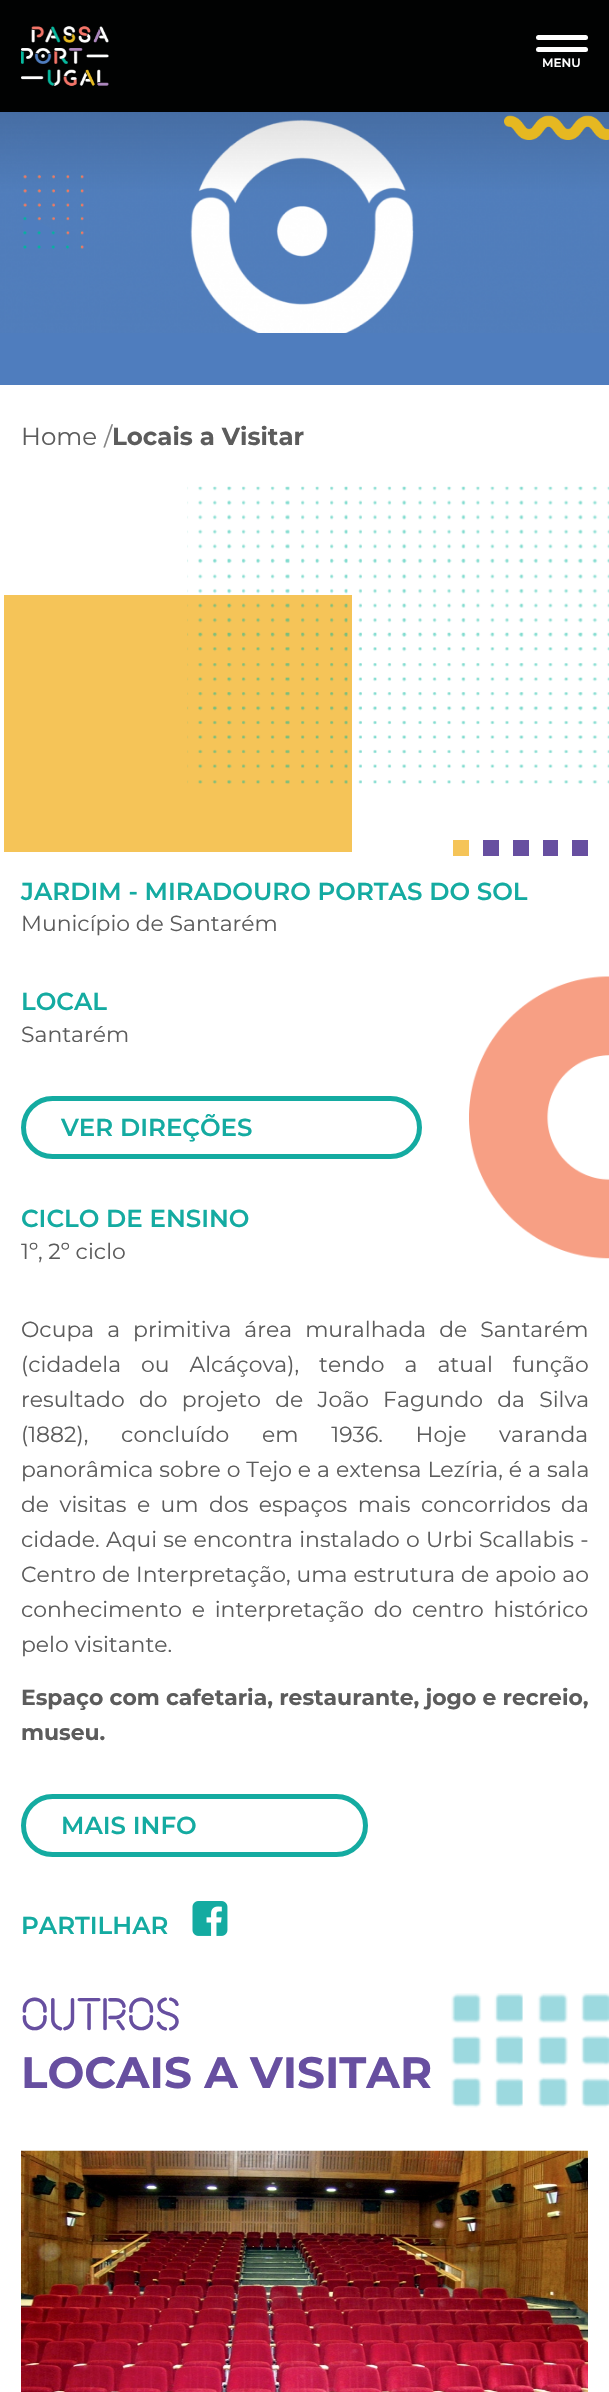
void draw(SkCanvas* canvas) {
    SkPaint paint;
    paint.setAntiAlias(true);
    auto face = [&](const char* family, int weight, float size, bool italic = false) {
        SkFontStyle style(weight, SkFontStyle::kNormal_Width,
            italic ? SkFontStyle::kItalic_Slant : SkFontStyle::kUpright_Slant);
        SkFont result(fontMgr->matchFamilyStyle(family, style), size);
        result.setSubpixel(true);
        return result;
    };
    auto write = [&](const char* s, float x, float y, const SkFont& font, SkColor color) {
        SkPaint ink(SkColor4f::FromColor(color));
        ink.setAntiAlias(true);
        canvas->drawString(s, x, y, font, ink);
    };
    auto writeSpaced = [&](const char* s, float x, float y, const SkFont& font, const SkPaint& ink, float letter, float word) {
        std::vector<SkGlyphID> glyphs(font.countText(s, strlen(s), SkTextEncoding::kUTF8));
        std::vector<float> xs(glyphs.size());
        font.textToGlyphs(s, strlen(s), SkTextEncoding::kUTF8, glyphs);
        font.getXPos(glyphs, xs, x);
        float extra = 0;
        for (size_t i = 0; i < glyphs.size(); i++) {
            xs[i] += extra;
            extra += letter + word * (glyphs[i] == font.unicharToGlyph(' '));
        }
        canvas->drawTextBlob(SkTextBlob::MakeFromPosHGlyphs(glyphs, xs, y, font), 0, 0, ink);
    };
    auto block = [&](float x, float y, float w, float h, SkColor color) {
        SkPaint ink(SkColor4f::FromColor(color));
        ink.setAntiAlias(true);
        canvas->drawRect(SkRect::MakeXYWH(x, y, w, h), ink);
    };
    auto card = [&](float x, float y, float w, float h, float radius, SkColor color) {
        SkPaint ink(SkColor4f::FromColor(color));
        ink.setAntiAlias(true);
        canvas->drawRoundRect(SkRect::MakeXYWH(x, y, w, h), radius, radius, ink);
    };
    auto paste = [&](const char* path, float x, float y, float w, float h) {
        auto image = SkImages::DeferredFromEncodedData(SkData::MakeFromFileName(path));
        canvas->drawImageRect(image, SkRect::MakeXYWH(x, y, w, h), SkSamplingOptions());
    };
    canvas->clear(SK_ColorWHITE);
    block(0, 0, 609, 112, SkColorSetRGB(1, 2, 2));
    paste("pic1.png", 21, 26, 88, 60);
    card(536, 35, 52, 5, 2.5f, SK_ColorWHITE);
    card(536, 47, 52, 5, 2.5f, SK_ColorWHITE);
    auto kFont1 = face("Montserrat", 600, 12);
    write("MENU", 542, 67, kFont1, SK_ColorWHITE);
    paste("pic2.png", 0, 112, 609, 221);
    paste("pic3.png", 23, 175, 61, 74);
    block(0, 333, 609, 52, SkColorSetRGB(79, 125, 190));
    paste("pic4.png", 504, 115, 105, 25);
    auto kFont2 = face("Montserrat", 400, 24.5f);
    write("Home", 21, 445, kFont2, SkColorSetRGB(92, 92, 92));
    write("/", 104, 445, kFont2, SkColorSetRGB(133, 133, 133));
    auto kFont3 = face("Montserrat", 700, 24.5f);
    write("Locais a Visitar", 112, 445, kFont3, SkColorSetRGB(92, 92, 92));
    block(4, 595, 348, 257, SkColorSetRGB(245, 196, 88));
    paste("pic5.png", 187, 486, 422, 298);
    block(453, 840, 16, 16, SkColorSetRGB(245, 196, 88));
    block(483, 840, 16, 16, SkColorSetRGB(103, 79, 160));
    block(513, 840, 16, 16, SkColorSetRGB(103, 79, 160));
    block(543, 840, 15, 16, SkColorSetRGB(103, 79, 160));
    block(572, 840, 16, 16, SkColorSetRGB(103, 79, 160));
    auto kFont4 = face("Montserrat", 600, 24.5f);
    write("JARDIM - MIRADOURO PORTAS DO SOL", 21, 900, kFont4, SkColorSetRGB(20, 171, 161));
    auto kFont5 = face("Montserrat", 400, 21.9f);
    write("Município de Santarém", 21, 931, kFont5, SkColorSetRGB(92, 92, 92));
    write("LOCAL", 21, 1010, kFont4, SkColorSetRGB(20, 171, 161));
    write("Santarém", 21, 1042, kFont5, SkColorSetRGB(92, 92, 92));
    paint.setStyle(SkPaint::kStroke_Style);
    paint.setStrokeWidth(5);
    paint.setColor(SkColorSetRGB(20, 171, 161));
    canvas->drawRoundRect(SkRect::MakeXYWH(23.5f, 1098.5f, 396, 58), 29, 29, paint);
    write("VER DIREÇÕES", 61, 1136, kFont4, SkColorSetRGB(20, 171, 161));
    write("CICLO DE ENSINO", 21, 1227, kFont4, SkColorSetRGB(20, 171, 161));
    write("1º, 2º ciclo", 21, 1259, kFont5, SkColorSetRGB(92, 92, 92));
    paint.setStyle(SkPaint::kFill_Style);
    paint.setColor(SkColorSetRGB(92, 92, 92));
    writeSpaced("Ocupa a primitiva área muralhada de Santarém", 21, 1337, kFont5, paint, 0, 7.25f);
    writeSpaced("(cidadela ou Alcáçova), tendo a atual função", 21, 1372, kFont5, paint, 0, 14.25f);
    writeSpaced("resultado do projeto de João Fagundo da Silva", 21, 1407, kFont5, paint, 0, 8.5f);
    writeSpaced("(1882), concluído em 1936. Hoje varanda", 21, 1442, kFont5, paint, 0, 27);
    writeSpaced("panorâmica sobre o Tejo e a extensa Lezíria, é a sala", 21, 1477, kFont5, paint, 0, 0.25f);
    writeSpaced("de visitas e um dos espaços mais concorridos da", 21, 1512, kFont5, paint, 0, 4.75f);
    writeSpaced("cidade. Aqui se encontra instalado o Urbi Scallabis -", 21, 1547, kFont5, paint, 0, 0.5f);
    writeSpaced("Centro de Interpretação, uma estrutura de apoio ao", 21, 1582, kFont5, paint, 0, 0.25f);
    writeSpaced("conhecimento e interpretação do centro histórico", 21, 1617, kFont5, paint, 0, 4);
    write("pelo visitante.", 21, 1652, kFont5, SkColorSetRGB(92, 92, 92));
    auto kFont6 = face("Montserrat", 700, 21.9f);
    write("Espaço com cafetaria, restaurante, jogo e recreio,", 21, 1705, kFont6, SkColorSetRGB(92, 92, 92));
    write("museu.", 21, 1740, kFont6, SkColorSetRGB(92, 92, 92));
    paint.setStyle(SkPaint::kStroke_Style);
    paint.setColor(SkColorSetRGB(20, 171, 161));
    canvas->drawRoundRect(SkRect::MakeXYWH(23.5f, 1796.5f, 342, 58), 29, 29, paint);
    write("MAIS INFO", 61, 1834, kFont4, SkColorSetRGB(20, 171, 161));
    write("PARTILHAR", 21, 1934, kFont4, SkColorSetRGB(20, 171, 161));
    paste("pic6.png", 192, 1901, 36, 35);
    paste("pic7.png", 469, 976, 140, 283);
    auto kFont7 = face("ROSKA", 400, 43.75f);
    write("OUTROS", 21, 2030, kFont7, SkColorSetRGB(103, 79, 160));
    auto kFont8 = face("Montserrat", 700, 43.75f);
    write("LOCAIS A VISITAR", 21, 2088, kFont8, SkColorSetRGB(103, 79, 160));
    paste("pic8.png", 21, 2150, 567, 242);
    paste("pic9.png", 451, 1993, 158, 115);
}
